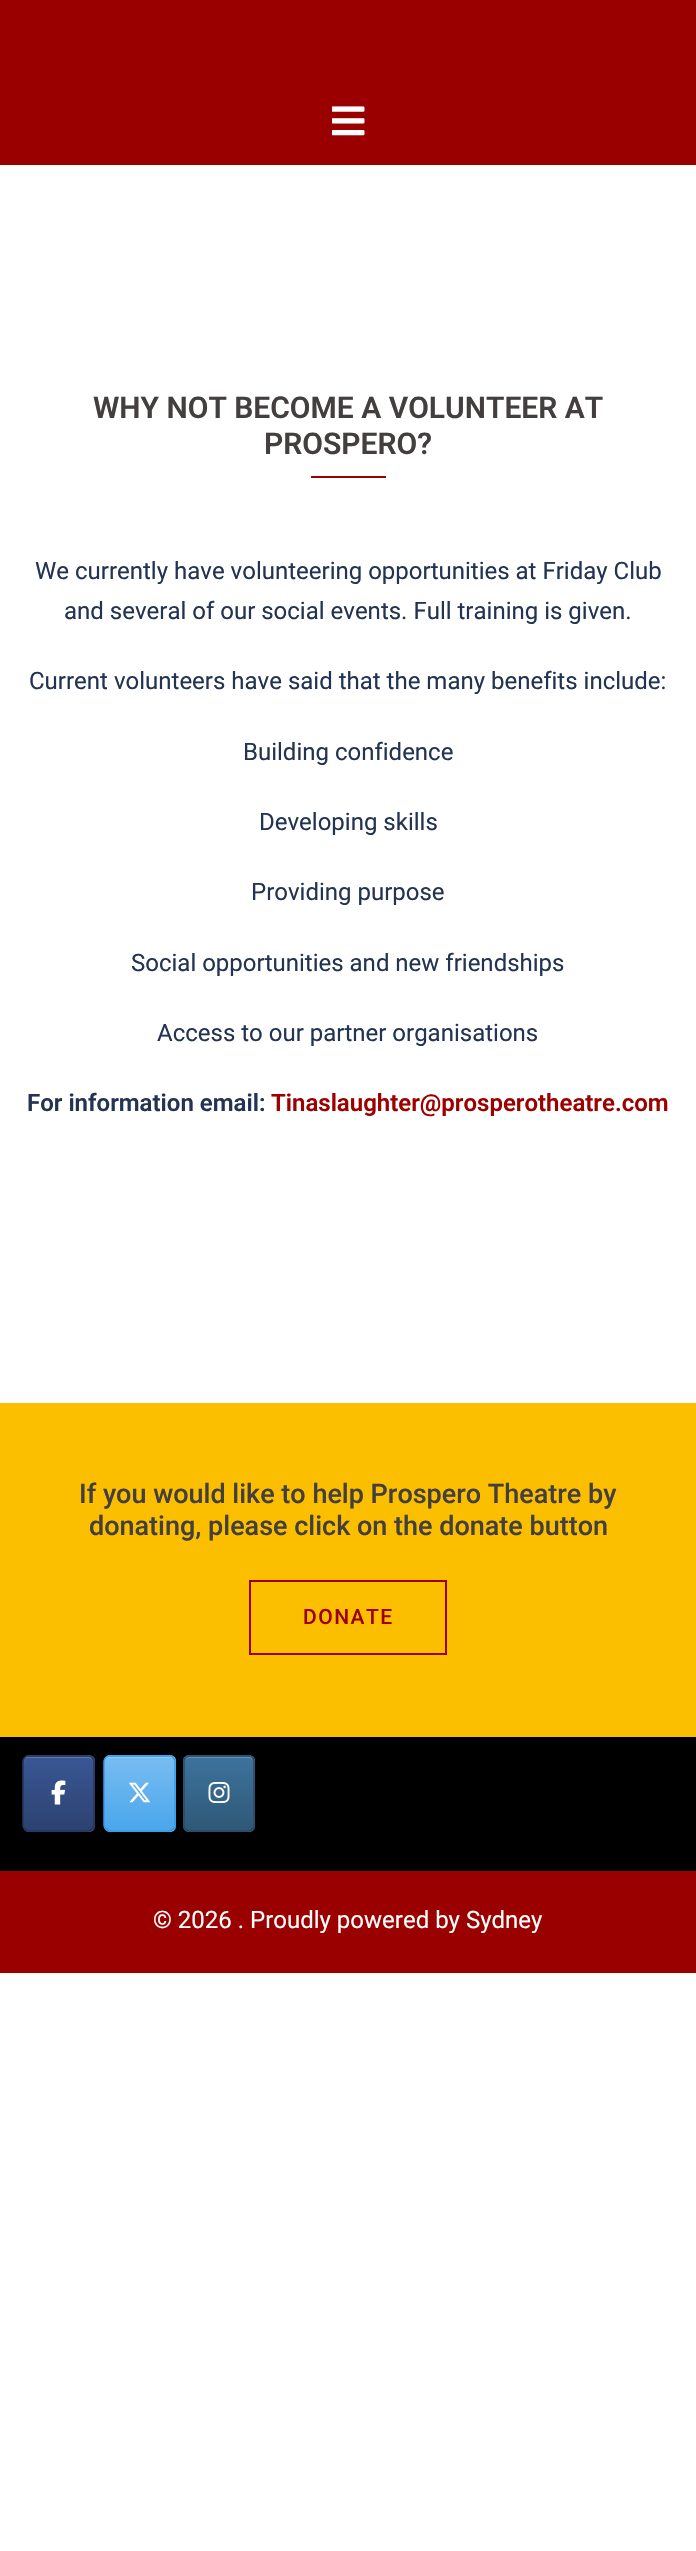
void draw(SkCanvas* canvas) {
    SkPaint paint;
    paint.setAntiAlias(true);
    auto face = [&](const char* family, int weight, float size, bool italic = false) {
        SkFontStyle style(weight, SkFontStyle::kNormal_Width,
            italic ? SkFontStyle::kItalic_Slant : SkFontStyle::kUpright_Slant);
        SkFont result(fontMgr->matchFamilyStyle(family, style), size);
        result.setSubpixel(true);
        return result;
    };
    auto write = [&](const char* s, float x, float y, const SkFont& font, SkColor color) {
        SkPaint ink(SkColor4f::FromColor(color));
        ink.setAntiAlias(true);
        canvas->drawString(s, x, y, font, ink);
    };
    auto writeSpaced = [&](const char* s, float x, float y, const SkFont& font, const SkPaint& ink, float letter, float word) {
        std::vector<SkGlyphID> glyphs(font.countText(s, strlen(s), SkTextEncoding::kUTF8));
        std::vector<float> xs(glyphs.size());
        font.textToGlyphs(s, strlen(s), SkTextEncoding::kUTF8, glyphs);
        font.getXPos(glyphs, xs, x);
        float extra = 0;
        for (size_t i = 0; i < glyphs.size(); i++) {
            xs[i] += extra;
            extra += letter + word * (glyphs[i] == font.unicharToGlyph(' '));
        }
        canvas->drawTextBlob(SkTextBlob::MakeFromPosHGlyphs(glyphs, xs, y, font), 0, 0, ink);
    };
    auto block = [&](float x, float y, float w, float h, SkColor color) {
        SkPaint ink(SkColor4f::FromColor(color));
        ink.setAntiAlias(true);
        canvas->drawRect(SkRect::MakeXYWH(x, y, w, h), ink);
    };
    auto paste = [&](const char* path, float x, float y, float w, float h) {
        auto image = SkImages::DeferredFromEncodedData(SkData::MakeFromFileName(path));
        canvas->drawImageRect(image, SkRect::MakeXYWH(x, y, w, h), SkSamplingOptions());
    };
    canvas->clear(SK_ColorWHITE);
    block(0, 0, 696, 165, SkColorSetRGB(155, 0, 0));
    paste("pic1.png", 332, 106, 33, 30);
    auto kFont1 = face("Roboto", 600, 30);
    write("WHY NOT BECOME A VOLUNTEER AT", 93, 418, kFont1, SkColorSetRGB(68, 63, 63));
    write("PROSPERO?", 264, 454, kFont1, SkColorSetRGB(68, 63, 63));
    block(311, 476, 75, 2, SkColorSetRGB(158, 0, 0));
    auto kFont2 = face("Roboto", 400, 24);
    write("We currently have volunteering opportunities at Friday Club", 35, 579, kFont2, SkColorSetRGB(35, 52, 82));
    write("and several of our social events. Full training is given.", 64, 619, kFont2, SkColorSetRGB(35, 52, 82));
    write("Current volunteers have said that the many benefits include:", 29, 689, kFont2, SkColorSetRGB(35, 52, 82));
    write("Building confidence", 243, 760, kFont2, SkColorSetRGB(35, 52, 82));
    write("Developing skills", 259, 830, kFont2, SkColorSetRGB(35, 52, 82));
    write("Providing purpose", 251, 900, kFont2, SkColorSetRGB(35, 52, 82));
    write("Social opportunities and new friendships", 131, 971, kFont2, SkColorSetRGB(35, 52, 82));
    write("Access to our partner organisations", 157, 1041, kFont2, SkColorSetRGB(35, 52, 82));
    auto kFont3 = face("Roboto", 600, 24);
    write("For information email:", 27, 1111, kFont3, SkColorSetRGB(35, 52, 82));
    write("Tinaslaughter@prosperotheatre.com", 271, 1111, kFont3, SkColorSetRGB(158, 0, 0));
    block(0, 1403, 696, 334, SkColorSetRGB(252, 191, 0));
    auto kFont4 = face("Roboto", 500, 27);
    write("If you would like to help Prospero Theatre by", 79, 1503, kFont4, SkColorSetRGB(68, 63, 63));
    write("donating, please click on the donate button", 89, 1535, kFont4, SkColorSetRGB(68, 63, 63));
    paint.setStyle(SkPaint::kStroke_Style);
    paint.setStrokeWidth(2);
    paint.setColor(SkColorSetRGB(158, 0, 0));
    canvas->drawRect(SkRect::MakeXYWH(250, 1581, 196, 73), paint);
    auto kFont5 = face("Roboto", 500, 21);
    paint.setStyle(SkPaint::kFill_Style);
    writeSpaced("DONATE", 303, 1624, kFont5, paint, 1.5f, 0);
    block(0, 1737, 696, 134, SK_ColorBLACK);
    canvas->save();
    canvas->clipPath(SkPathBuilder().moveTo(29, 1755).lineTo(89, 1755).cubicTo(92.5f, 1755, 95, 1757.5f, 95, 1761).lineTo(95, 1826).cubicTo(95, 1829.5f, 92.5f, 1832, 89, 1832).lineTo(29, 1832).cubicTo(25.5f, 1832, 23, 1829.5f, 23, 1826).lineTo(23, 1761).cubicTo(23, 1757.5f, 25.5f, 1755, 29, 1755).close().detach(), true);
    {
        const SkColor colors[] = {SkColorSetRGB(44, 66, 112), SkColorSetRGB(58, 87, 149)};
        const float stops[] = {0, 1};
        const SkPoint ends[] = {{24, 1757}, {24, 1683}};
        paint.setShader(SkGradientShader::MakeLinear(ends, colors, stops, 2, SkTileMode::kClamp));
        paint.setAlpha(255);
    }
    canvas->drawRect(SkRect::MakeXYWH(23, 1755, 72, 2), paint);
    {
        const SkColor colors[] = {SkColorSetRGB(44, 66, 112), SkColorSetRGB(58, 87, 149)};
        const float stops[] = {0, 1};
        const SkPoint ends[] = {{24, 1830}, {24, 1757}};
        paint.setShader(SkGradientShader::MakeLinear(ends, colors, stops, 2, SkTileMode::kClamp));
        paint.setAlpha(255);
    }
    canvas->drawRect(SkRect::MakeXYWH(23, 1757, 72, 73), paint);
    {
        const SkColor colors[] = {SkColorSetRGB(44, 66, 112), SkColorSetRGB(58, 87, 149)};
        const float stops[] = {0, 1};
        const SkPoint ends[] = {{24, 1904}, {24, 1830}};
        paint.setShader(SkGradientShader::MakeLinear(ends, colors, stops, 2, SkTileMode::kClamp));
        paint.setAlpha(255);
    }
    canvas->drawRect(SkRect::MakeXYWH(23, 1830, 72, 2), paint);
    canvas->restore();
    paint.setShader(nullptr);
    paint.setColor(SkColorSetRGB(97, 121, 170));
    canvas->drawPath(SkPathBuilder().moveTo(28, 1758).lineTo(88, 1758).cubicTo(91, 1758, 93, 1760, 93, 1762).cubicTo(93, 1759, 91, 1757, 88, 1757).lineTo(29, 1757).cubicTo(26, 1757, 24, 1759, 24, 1762).cubicTo(24, 1760, 26, 1758, 28, 1758).close().detach(), paint);
    paint.setStyle(SkPaint::kStroke_Style);
    paint.setStrokeWidth(1.5f);
    paint.setColor(SkColorSetRGB(39, 59, 101));
    canvas->drawPath(SkPathBuilder().moveTo(25, 1757.5f).cubicTo(26, 1756.5f, 27, 1756, 28.5f, 1756).lineTo(88.5f, 1756).cubicTo(90, 1756, 91, 1756.5f, 92, 1757.5f).detach(), paint);
    paint.setColor(SkColorSetRGB(37, 55, 94));
    canvas->drawPath(SkPathBuilder().moveTo(92, 1757.5f).cubicTo(93, 1758.5f, 94, 1759.5f, 94, 1761).lineTo(94, 1825.5f).cubicTo(94, 1827, 93, 1828, 92, 1829).detach(), paint);
    paint.setColor(SkColorSetRGB(32, 48, 83));
    canvas->drawPath(SkPathBuilder().moveTo(92, 1829).cubicTo(91, 1830, 90, 1831, 88.5f, 1831).lineTo(28.5f, 1831).cubicTo(27, 1831, 26, 1830, 25, 1829).detach(), paint);
    paint.setColor(SkColorSetRGB(37, 55, 94));
    canvas->drawPath(SkPathBuilder().moveTo(25, 1829).cubicTo(24, 1828, 23, 1827, 23, 1825.5f).lineTo(23, 1761).cubicTo(23, 1759.5f, 24, 1758.5f, 25, 1757.5f).detach(), paint);
    paste("pic2.png", 51, 1780, 15, 25);
    canvas->save();
    canvas->clipPath(SkPathBuilder().moveTo(110, 1755).lineTo(170, 1755).cubicTo(173.5f, 1755, 176, 1757.5f, 176, 1761).lineTo(176, 1826).cubicTo(176, 1829.5f, 173.5f, 1832, 170, 1832).lineTo(110, 1832).cubicTo(106.5f, 1832, 104, 1829.5f, 104, 1826).lineTo(104, 1761).cubicTo(104, 1757.5f, 106.5f, 1755, 110, 1755).close().detach(), true);
    paint.setStyle(SkPaint::kFill_Style);
    {
        const SkColor colors[] = {SkColorSetRGB(74, 166, 236), SkColorSetRGB(120, 189, 241)};
        const float stops[] = {0, 1};
        const SkPoint ends[] = {{105, 1757}, {105, 1683}};
        paint.setShader(SkGradientShader::MakeLinear(ends, colors, stops, 2, SkTileMode::kClamp));
        paint.setAlpha(255);
    }
    canvas->drawRect(SkRect::MakeXYWH(104, 1755, 72, 2), paint);
    {
        const SkColor colors[] = {SkColorSetRGB(74, 166, 236), SkColorSetRGB(120, 189, 241)};
        const float stops[] = {0, 1};
        const SkPoint ends[] = {{105, 1830}, {105, 1757}};
        paint.setShader(SkGradientShader::MakeLinear(ends, colors, stops, 2, SkTileMode::kClamp));
        paint.setAlpha(255);
    }
    canvas->drawRect(SkRect::MakeXYWH(104, 1757, 72, 73), paint);
    {
        const SkColor colors[] = {SkColorSetRGB(74, 166, 236), SkColorSetRGB(120, 189, 241)};
        const float stops[] = {0, 1};
        const SkPoint ends[] = {{105, 1904}, {105, 1830}};
        paint.setShader(SkGradientShader::MakeLinear(ends, colors, stops, 2, SkTileMode::kClamp));
        paint.setAlpha(255);
    }
    canvas->drawRect(SkRect::MakeXYWH(104, 1830, 72, 2), paint);
    canvas->restore();
    paint.setShader(nullptr);
    paint.setColor(SkColorSetRGB(147, 202, 244));
    canvas->drawPath(SkPathBuilder().moveTo(110, 1758).lineTo(170, 1758).cubicTo(172, 1758, 174, 1760, 174, 1762).cubicTo(174, 1759, 172, 1757, 169, 1757).lineTo(110, 1757).cubicTo(107, 1757, 105, 1759, 105, 1762).cubicTo(105, 1760, 107, 1758, 110, 1758).close().detach(), paint);
    paint.setStyle(SkPaint::kStroke_Style);
    paint.setColor(SkColorSetRGB(60, 160, 235));
    canvas->drawPath(SkPathBuilder().moveTo(106, 1757.5f).cubicTo(107, 1756.5f, 108, 1756, 109.5f, 1756).lineTo(169.5f, 1756).cubicTo(171, 1756, 172, 1756.5f, 173, 1757.5f).detach(), paint);
    paint.setColor(SkColorSetRGB(51, 155, 234));
    canvas->drawPath(SkPathBuilder().moveTo(173, 1757.5f).cubicTo(174, 1758.5f, 175, 1759.5f, 175, 1761).lineTo(175, 1825.5f).cubicTo(175, 1827, 174, 1828, 173, 1829).detach(), paint);
    paint.setColor(SkColorSetRGB(37, 148, 232));
    canvas->drawPath(SkPathBuilder().moveTo(173, 1829).cubicTo(172, 1830, 171, 1831, 169.5f, 1831).lineTo(109.5f, 1831).cubicTo(108, 1831, 107, 1830, 106, 1829).detach(), paint);
    paint.setColor(SkColorSetRGB(51, 155, 234));
    canvas->drawPath(SkPathBuilder().moveTo(106, 1829).cubicTo(105, 1828, 104, 1827, 104, 1825.5f).lineTo(104, 1761).cubicTo(104, 1759.5f, 105, 1758.5f, 106, 1757.5f).detach(), paint);
    paste("pic3.png", 128, 1782, 23, 21);
    canvas->save();
    canvas->clipPath(SkPathBuilder().moveTo(189, 1755).lineTo(249, 1755).cubicTo(252.5f, 1755, 255, 1757.5f, 255, 1761).lineTo(255, 1826).cubicTo(255, 1829.5f, 252.5f, 1832, 249, 1832).lineTo(189, 1832).cubicTo(185.5f, 1832, 183, 1829.5f, 183, 1826).lineTo(183, 1761).cubicTo(183, 1757.5f, 185.5f, 1755, 189, 1755).close().detach(), true);
    paint.setStyle(SkPaint::kFill_Style);
    {
        const SkColor colors[] = {SkColorSetRGB(47, 88, 119), SkColorSetRGB(61, 115, 156)};
        const float stops[] = {0, 1};
        const SkPoint ends[] = {{185, 1757}, {185, 1683}};
        paint.setShader(SkGradientShader::MakeLinear(ends, colors, stops, 2, SkTileMode::kClamp));
        paint.setAlpha(255);
    }
    canvas->drawRect(SkRect::MakeXYWH(183, 1755, 72, 2), paint);
    {
        const SkColor colors[] = {SkColorSetRGB(47, 88, 119), SkColorSetRGB(61, 115, 156)};
        const float stops[] = {0, 1};
        const SkPoint ends[] = {{185, 1830}, {185, 1757}};
        paint.setShader(SkGradientShader::MakeLinear(ends, colors, stops, 2, SkTileMode::kClamp));
        paint.setAlpha(255);
    }
    canvas->drawRect(SkRect::MakeXYWH(183, 1757, 72, 73), paint);
    {
        const SkColor colors[] = {SkColorSetRGB(47, 88, 119), SkColorSetRGB(61, 115, 156)};
        const float stops[] = {0, 1};
        const SkPoint ends[] = {{185, 1904}, {185, 1830}};
        paint.setShader(SkGradientShader::MakeLinear(ends, colors, stops, 2, SkTileMode::kClamp));
        paint.setAlpha(255);
    }
    canvas->drawRect(SkRect::MakeXYWH(183, 1830, 72, 2), paint);
    canvas->restore();
    paint.setShader(nullptr);
    paint.setColor(SkColorSetRGB(100, 143, 176));
    canvas->drawPath(SkPathBuilder().moveTo(189, 1758).lineTo(249, 1758).cubicTo(251, 1758, 254, 1760, 254, 1762).cubicTo(254, 1759, 252, 1757, 249, 1757).lineTo(190, 1757).cubicTo(188, 1757, 187, 1758, 186, 1759).close().detach(), paint);
    paint.setStyle(SkPaint::kStroke_Style);
    paint.setColor(SkColorSetRGB(42, 80, 108));
    canvas->drawPath(SkPathBuilder().moveTo(185.5f, 1757.5f).cubicTo(186.5f, 1756.5f, 187.5f, 1756, 189, 1756).lineTo(249, 1756).cubicTo(250.5f, 1756, 251.5f, 1756.5f, 252.5f, 1757.5f).detach(), paint);
    paint.setColor(SkColorSetRGB(39, 74, 101));
    canvas->drawPath(SkPathBuilder().moveTo(252.5f, 1757.5f).cubicTo(253.5f, 1758.5f, 254, 1759.5f, 254, 1761).lineTo(254, 1825.5f).cubicTo(254, 1827, 253.5f, 1828, 252.5f, 1829).detach(), paint);
    paint.setColor(SkColorSetRGB(35, 66, 90));
    canvas->drawPath(SkPathBuilder().moveTo(252.5f, 1829).cubicTo(251.5f, 1830, 250.5f, 1831, 249, 1831).lineTo(189, 1831).cubicTo(187.5f, 1831, 186.5f, 1830, 185.5f, 1829).detach(), paint);
    paint.setColor(SkColorSetRGB(39, 74, 101));
    canvas->drawPath(SkPathBuilder().moveTo(185.5f, 1829).cubicTo(184.5f, 1828, 184, 1827, 184, 1825.5f).lineTo(184, 1761).cubicTo(184, 1759.5f, 184.5f, 1758.5f, 185.5f, 1757.5f).detach(), paint);
    paste("pic4.png", 208, 1782, 22, 21);
    block(0, 1871, 696, 102, SkColorSetRGB(155, 0, 0));
    write("© 2026 . Proudly powered by Sydney", 153, 1928, kFont2, SK_ColorWHITE);
}
